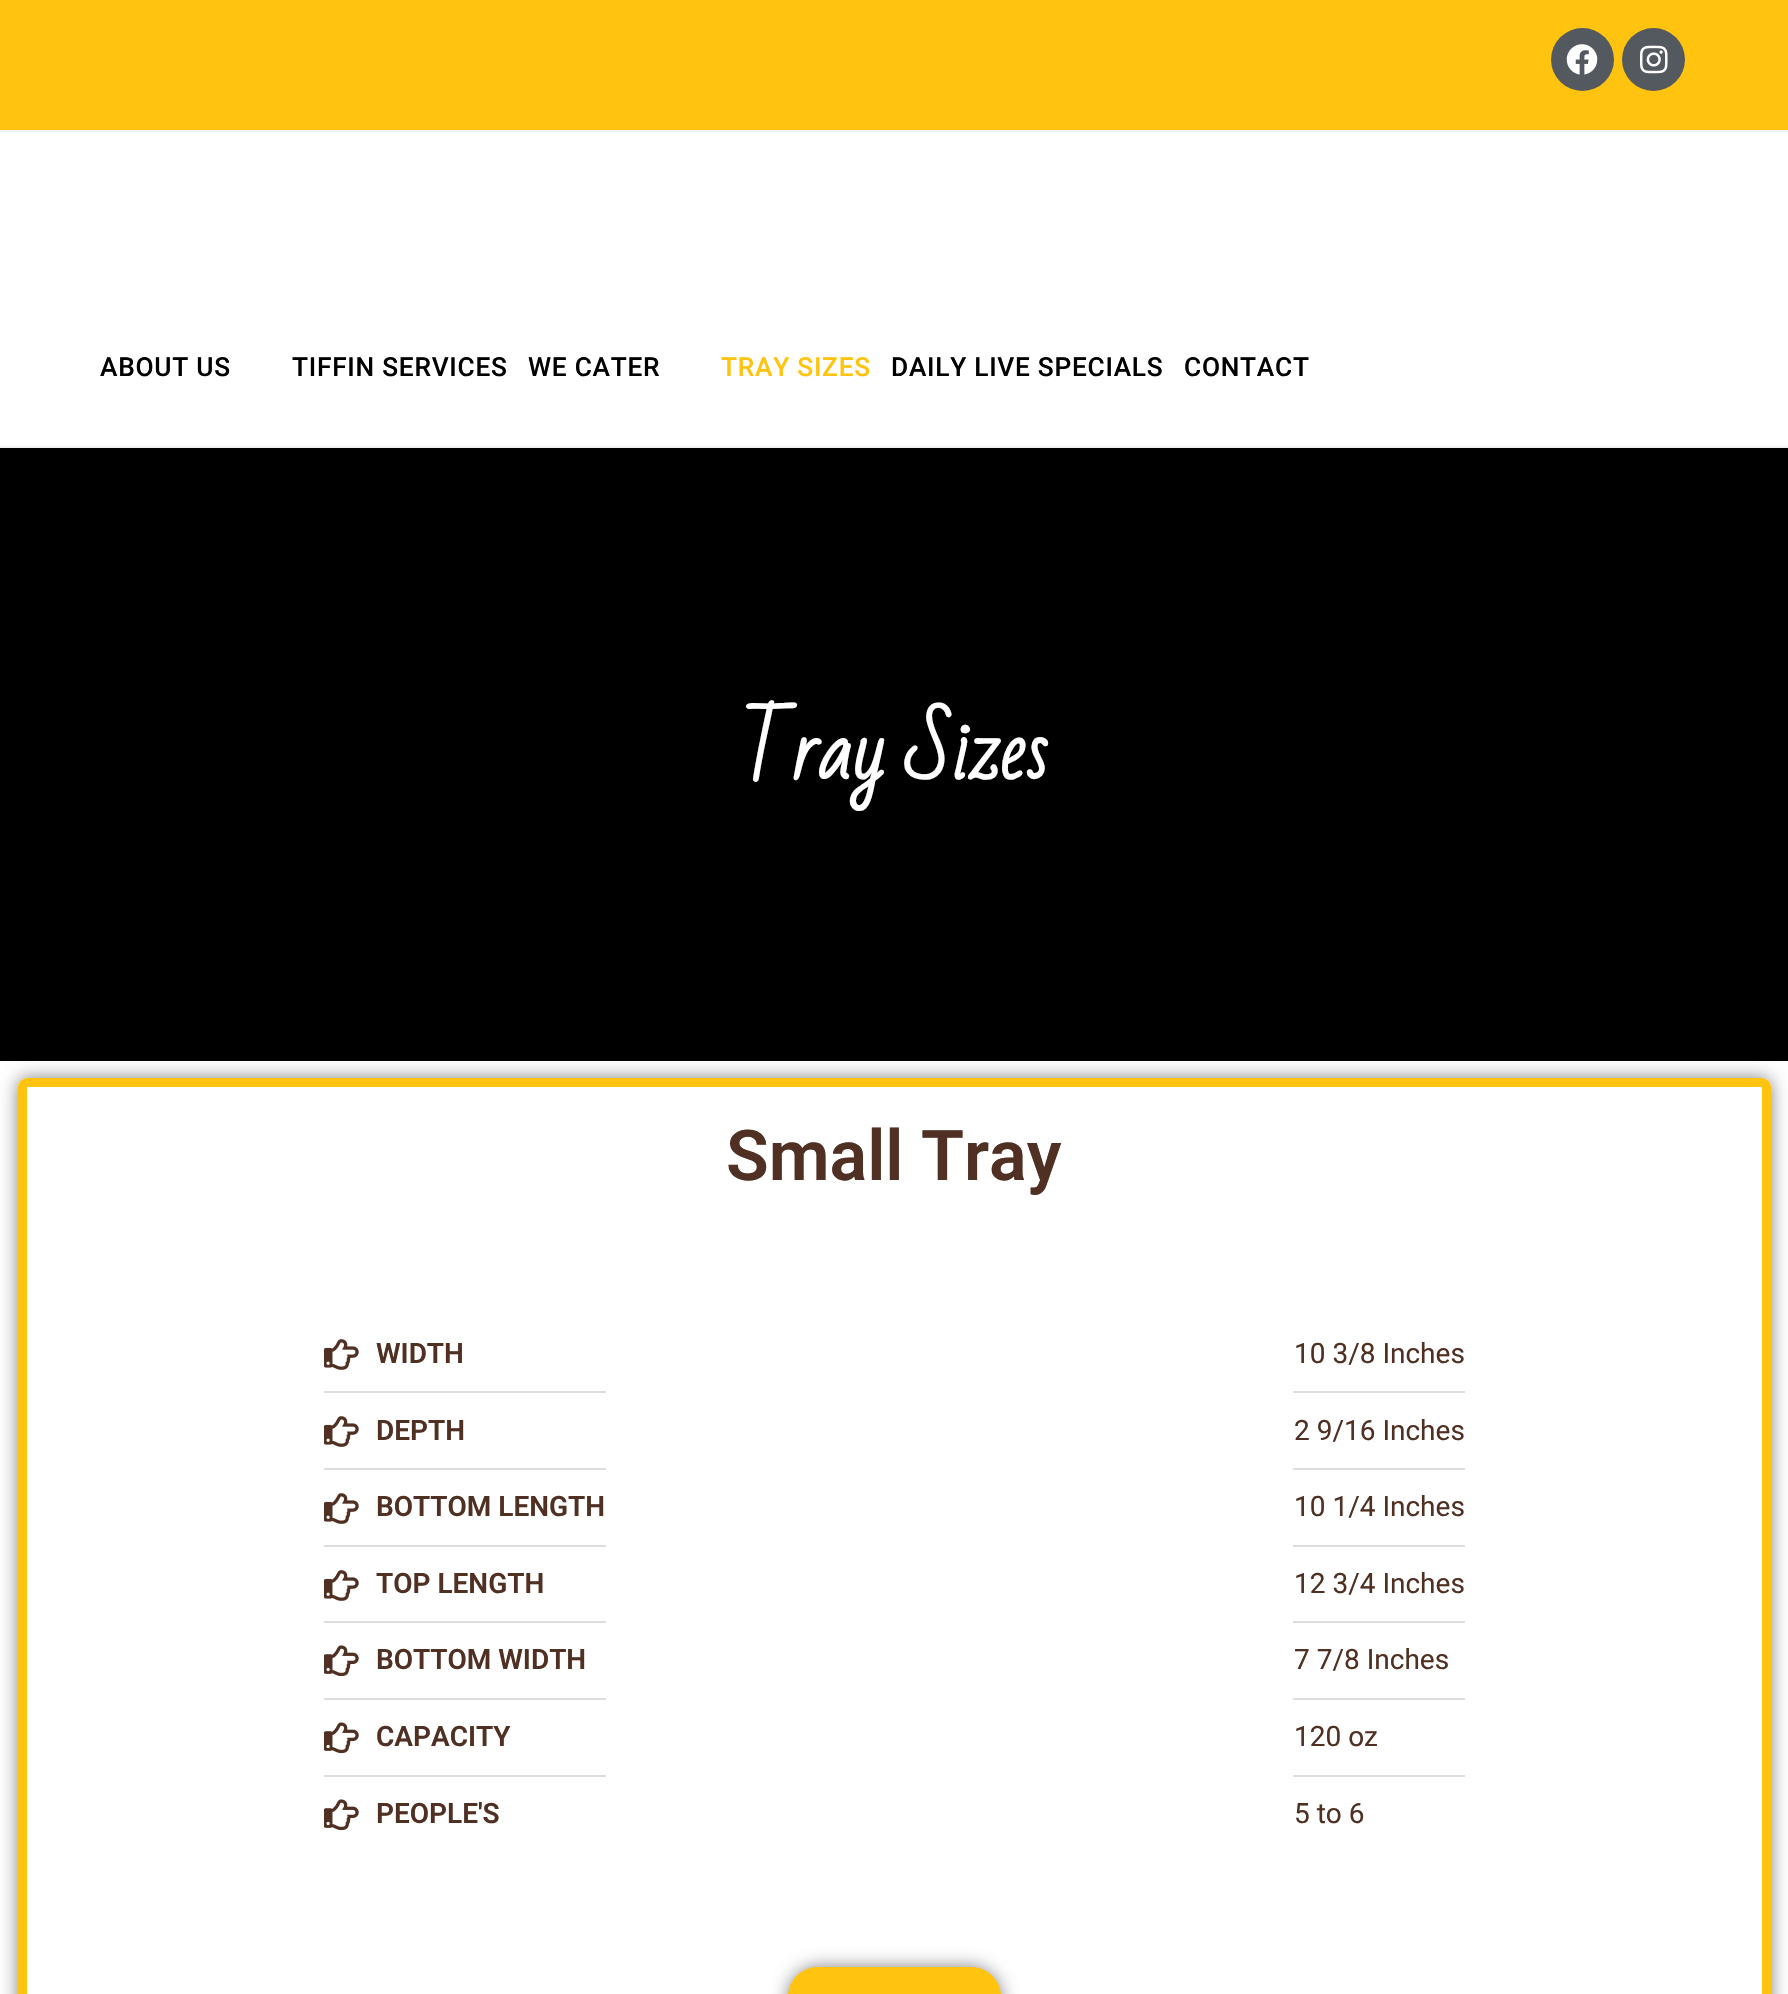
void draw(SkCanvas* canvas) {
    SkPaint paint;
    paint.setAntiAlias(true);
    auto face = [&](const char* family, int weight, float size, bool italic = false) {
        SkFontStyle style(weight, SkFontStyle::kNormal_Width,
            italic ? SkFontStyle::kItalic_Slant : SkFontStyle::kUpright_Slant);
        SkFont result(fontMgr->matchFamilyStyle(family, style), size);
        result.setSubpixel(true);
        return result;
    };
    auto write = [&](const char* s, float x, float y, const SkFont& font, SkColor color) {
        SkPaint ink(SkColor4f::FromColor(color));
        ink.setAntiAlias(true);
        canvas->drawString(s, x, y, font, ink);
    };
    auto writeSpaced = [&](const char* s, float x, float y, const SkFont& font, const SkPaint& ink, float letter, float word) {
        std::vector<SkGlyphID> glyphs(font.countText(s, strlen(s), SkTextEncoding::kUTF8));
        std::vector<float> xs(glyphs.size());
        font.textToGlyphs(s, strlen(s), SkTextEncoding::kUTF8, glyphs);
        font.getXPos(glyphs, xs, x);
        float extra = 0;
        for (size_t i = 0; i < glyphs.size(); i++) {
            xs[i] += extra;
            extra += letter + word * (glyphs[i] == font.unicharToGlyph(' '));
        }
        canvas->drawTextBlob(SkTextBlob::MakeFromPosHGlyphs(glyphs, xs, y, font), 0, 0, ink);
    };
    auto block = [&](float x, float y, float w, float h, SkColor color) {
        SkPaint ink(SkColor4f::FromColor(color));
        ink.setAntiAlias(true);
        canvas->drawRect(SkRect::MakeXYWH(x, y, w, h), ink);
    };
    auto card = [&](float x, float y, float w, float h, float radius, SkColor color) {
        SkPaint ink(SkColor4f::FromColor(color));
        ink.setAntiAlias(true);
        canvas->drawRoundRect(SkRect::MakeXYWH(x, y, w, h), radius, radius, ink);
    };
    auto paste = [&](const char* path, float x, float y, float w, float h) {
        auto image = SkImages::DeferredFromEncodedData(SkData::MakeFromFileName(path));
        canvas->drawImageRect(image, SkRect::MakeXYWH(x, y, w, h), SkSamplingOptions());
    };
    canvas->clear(SK_ColorWHITE);
    block(0, 0, 1788, 130, SkColorSetRGB(255, 195, 16));
    block(0, 130, 1788, 2, SkColorSetRGB(241, 241, 241));
    paint.setColor(SkColorSetRGB(84, 89, 95));
    canvas->drawCircle(1582.5f, 59.5f, 31.5f, paint);
    paste("pic1.png", 1566, 44, 32, 31);
    canvas->drawCircle(1653.5f, 59.5f, 31.5f, paint);
    paste("pic2.png", 1639, 45, 29, 29);
    block(0, 446, 1788, 2, SkColorSetRGB(241, 241, 241));
    auto kFont1 = face("Roboto", 500, 26.25f);
    paint.setColor(SK_ColorBLACK);
    writeSpaced("ABOUT US", 100, 376, kFont1, paint, 0.75f, 0);
    writeSpaced("TIFFIN SERVICES", 292, 376, kFont1, paint, 0.75f, 0);
    writeSpaced("WE CATER", 528, 376, kFont1, paint, 0.75f, 0);
    paint.setColor(SkColorSetRGB(255, 195, 16));
    writeSpaced("TRAY SIZES", 721, 376, kFont1, paint, 0.75f, 0);
    paint.setColor(SK_ColorBLACK);
    writeSpaced("DAILY LIVE SPECIALS", 891, 376, kFont1, paint, 0.75f, 0);
    writeSpaced("CONTACT", 1184, 376, kFont1, paint, 0.75f, 0);
    block(0, 448, 1788, 613, SK_ColorBLACK);
    auto kFont2 = face("Bad Script", 700, 77);
    write("Tray Sizes", 740, 779, kFont2, SK_ColorWHITE);
    canvas->save();
    canvas->clipPath(SkPathBuilder(SkPathFillType::kEvenOdd).moveTo(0, 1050).lineTo(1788, 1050).lineTo(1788, 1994).lineTo(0, 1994).close().moveTo(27, 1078).lineTo(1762, 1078).cubicTo(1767, 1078, 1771, 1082, 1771, 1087).lineTo(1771, 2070).cubicTo(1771, 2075, 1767, 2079, 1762, 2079).lineTo(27, 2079).cubicTo(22, 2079, 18, 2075, 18, 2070).lineTo(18, 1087).cubicTo(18, 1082, 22, 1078, 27, 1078).close().detach(), true);
    paint.setColor(SkColorSetARGB(128, 0, 0, 0));
    paint.setMaskFilter(SkMaskFilter::MakeBlur(kNormal_SkBlurStyle, 9));
    canvas->drawRoundRect(SkRect::MakeXYWH(18, 1078, 1753, 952), 9, 9, paint);
    paint.setMaskFilter(nullptr);
    canvas->restore();
    paint.setStyle(SkPaint::kStroke_Style);
    paint.setStrokeWidth(9);
    paint.setColor(SkColorSetRGB(255, 195, 16));
    canvas->drawRoundRect(SkRect::MakeXYWH(22.5f, 1082.5f, 1744, 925), 4.5f, 4.5f, paint);
    auto kFont3 = face("Roboto", 600, 70);
    write("Small Tray", 726, 1180, kFont3, SkColorSetRGB(80, 48, 35));
    paste("pic3.png", 324, 1339, 35, 31);
    auto kFont4 = face("Roboto", 600, 28);
    write("WIDTH", 376, 1363, kFont4, SkColorSetRGB(80, 48, 35));
    block(324, 1391, 282, 2, SkColorSetRGB(221, 221, 221));
    paste("pic3.png", 324, 1416, 35, 31);
    write("DEPTH", 376, 1440, kFont4, SkColorSetRGB(80, 48, 35));
    block(324, 1468, 282, 2, SkColorSetRGB(221, 221, 221));
    paste("pic3.png", 324, 1493, 35, 31);
    write("BOTTOM LENGTH", 376, 1516, kFont4, SkColorSetRGB(80, 48, 35));
    block(324, 1545, 282, 2, SkColorSetRGB(221, 221, 221));
    paste("pic3.png", 324, 1570, 35, 31);
    write("TOP LENGTH", 376, 1593, kFont4, SkColorSetRGB(80, 48, 35));
    block(324, 1621, 282, 2, SkColorSetRGB(221, 221, 221));
    paste("pic4.png", 324, 1645, 35, 32);
    write("BOTTOM WIDTH", 376, 1669, kFont4, SkColorSetRGB(80, 48, 35));
    block(324, 1698, 282, 2, SkColorSetRGB(221, 221, 221));
    paste("pic4.png", 324, 1722, 35, 32);
    write("CAPACITY", 376, 1746, kFont4, SkColorSetRGB(80, 48, 35));
    block(324, 1775, 282, 2, SkColorSetRGB(221, 221, 221));
    paste("pic4.png", 324, 1799, 35, 32);
    write("PEOPLE'S", 376, 1823, kFont4, SkColorSetRGB(80, 48, 35));
    auto kFont5 = face("Roboto", 400, 28);
    write("10 3/8 Inches", 1294, 1363, kFont5, SkColorSetRGB(80, 48, 35));
    block(1293, 1391, 172, 2, SkColorSetRGB(221, 221, 221));
    write("2 9/16 Inches", 1294, 1440, kFont5, SkColorSetRGB(80, 48, 35));
    block(1293, 1468, 172, 2, SkColorSetRGB(221, 221, 221));
    write("10 1/4 Inches", 1294, 1516, kFont5, SkColorSetRGB(80, 48, 35));
    block(1293, 1545, 172, 2, SkColorSetRGB(221, 221, 221));
    write("12 3/4 Inches", 1294, 1593, kFont5, SkColorSetRGB(80, 48, 35));
    block(1293, 1621, 172, 2, SkColorSetRGB(221, 221, 221));
    write("7 7/8 Inches", 1294, 1669, kFont5, SkColorSetRGB(80, 48, 35));
    block(1293, 1698, 172, 2, SkColorSetRGB(221, 221, 221));
    write("120 oz", 1294, 1746, kFont5, SkColorSetRGB(80, 48, 35));
    block(1293, 1775, 172, 2, SkColorSetRGB(221, 221, 221));
    write("5 to 6", 1294, 1823, kFont5, SkColorSetRGB(80, 48, 35));
    paint.setStyle(SkPaint::kFill_Style);
    paint.setColor(SkColorSetARGB(128, 0, 0, 0));
    paint.setMaskFilter(SkMaskFilter::MakeBlur(kNormal_SkBlurStyle, 9));
    canvas->drawRoundRect(SkRect::MakeXYWH(788, 1967, 213, 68), 32, 32, paint);
    paint.setMaskFilter(nullptr);
    card(788, 1967, 213, 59, 32, SkColorSetRGB(255, 195, 16));
}
